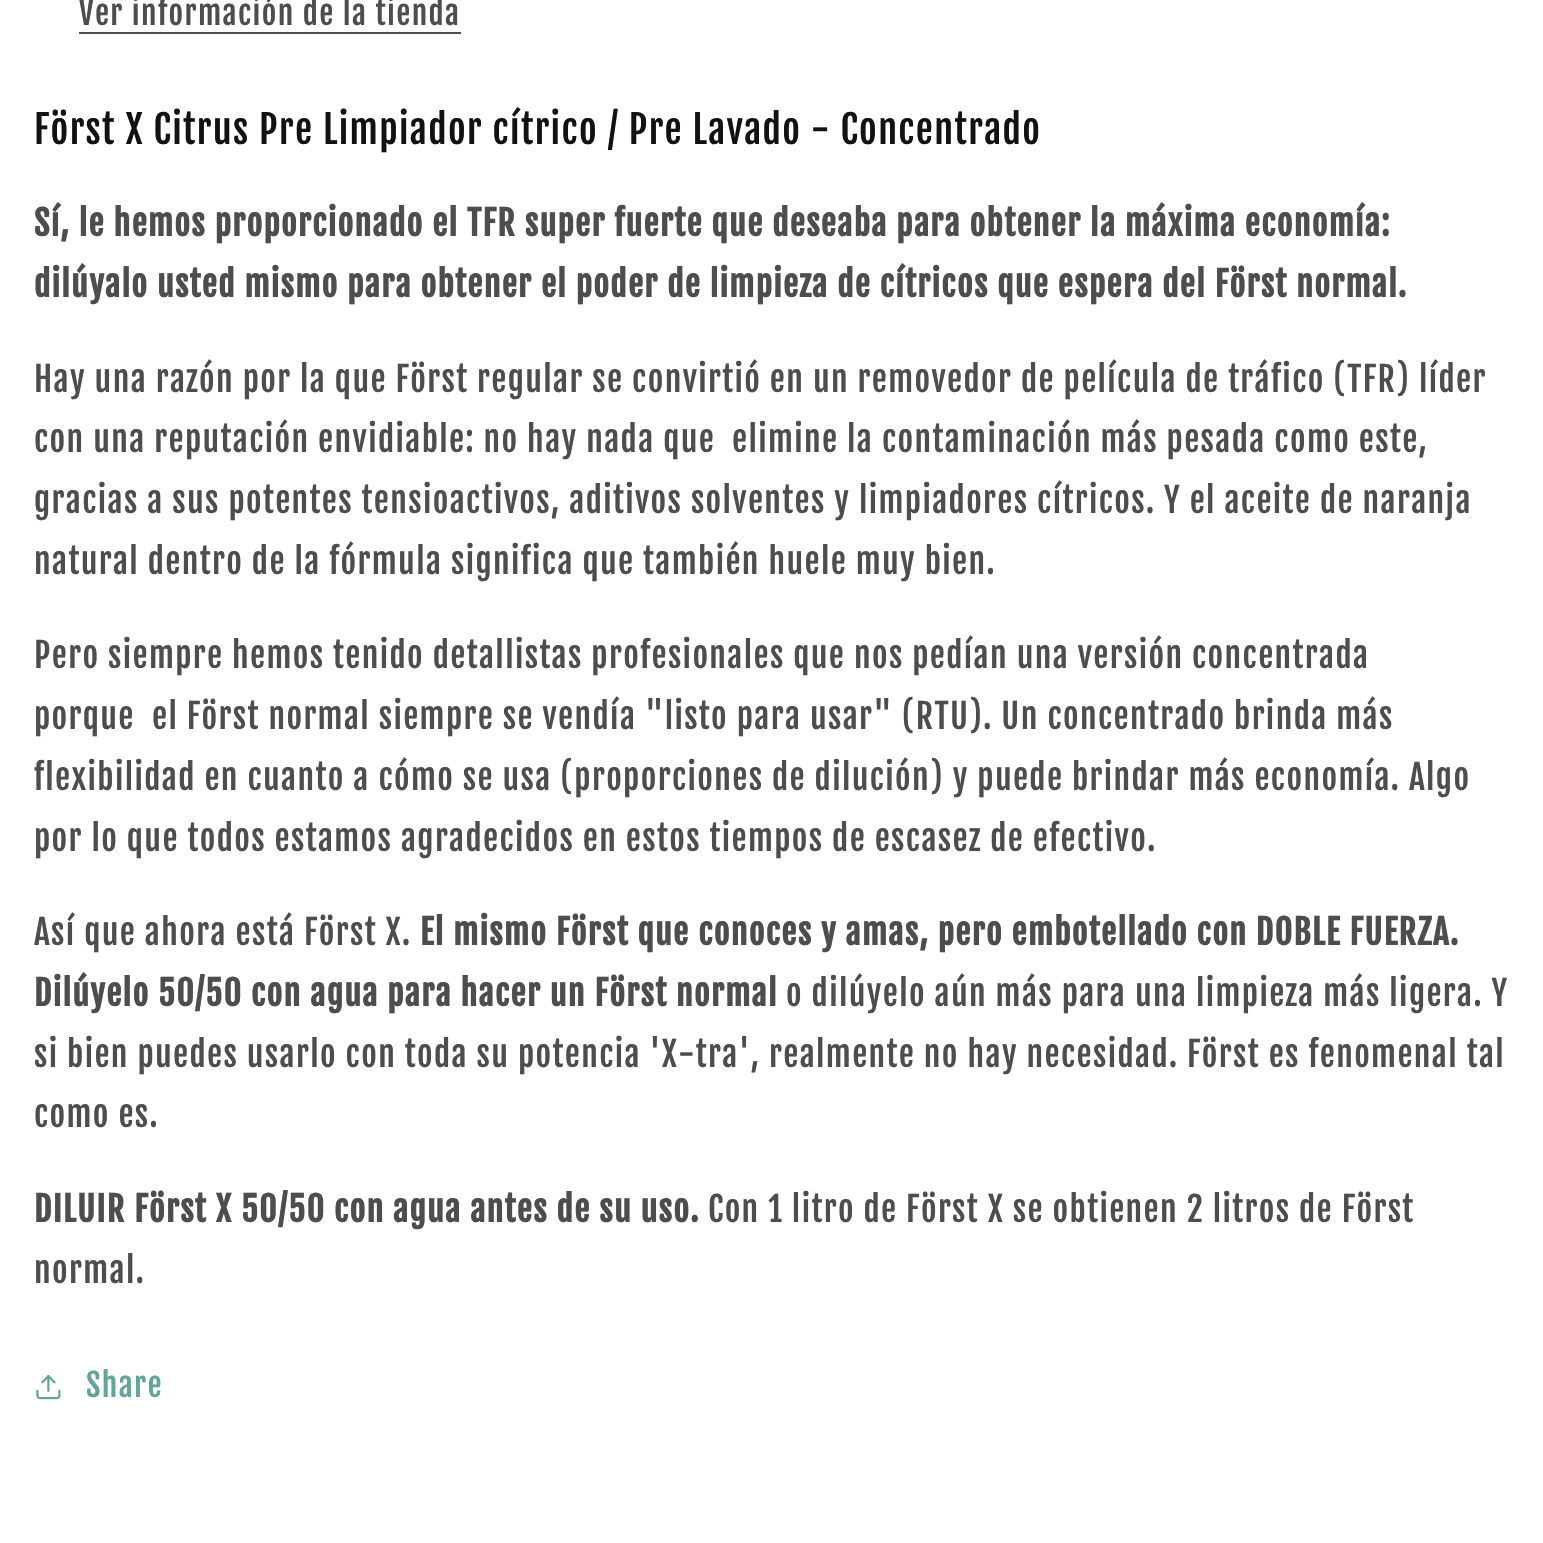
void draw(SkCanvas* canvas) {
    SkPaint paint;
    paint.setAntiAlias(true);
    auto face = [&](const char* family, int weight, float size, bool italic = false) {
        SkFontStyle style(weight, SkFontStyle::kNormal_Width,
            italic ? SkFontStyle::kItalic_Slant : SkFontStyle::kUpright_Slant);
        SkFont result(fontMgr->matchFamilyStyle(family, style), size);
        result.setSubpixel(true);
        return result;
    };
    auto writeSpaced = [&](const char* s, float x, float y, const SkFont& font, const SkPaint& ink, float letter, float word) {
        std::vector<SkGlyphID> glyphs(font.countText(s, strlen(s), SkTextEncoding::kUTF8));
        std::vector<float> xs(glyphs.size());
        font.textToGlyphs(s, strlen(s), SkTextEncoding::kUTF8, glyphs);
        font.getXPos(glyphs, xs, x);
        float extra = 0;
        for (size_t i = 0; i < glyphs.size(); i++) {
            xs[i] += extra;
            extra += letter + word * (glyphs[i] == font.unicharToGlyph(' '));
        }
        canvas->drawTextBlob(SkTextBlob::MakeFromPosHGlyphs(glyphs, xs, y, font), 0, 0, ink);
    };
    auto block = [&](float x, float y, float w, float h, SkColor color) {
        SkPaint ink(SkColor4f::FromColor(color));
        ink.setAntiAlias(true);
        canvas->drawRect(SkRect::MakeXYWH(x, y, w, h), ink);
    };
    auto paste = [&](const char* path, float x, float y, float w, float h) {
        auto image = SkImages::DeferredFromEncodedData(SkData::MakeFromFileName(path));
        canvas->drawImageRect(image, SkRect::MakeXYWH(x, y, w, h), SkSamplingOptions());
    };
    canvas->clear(SK_ColorWHITE);
    auto kFont1 = face("Fjalla One", 400, 31.5f);
    paint.setColor(SkColorSetRGB(77, 77, 77));
    writeSpaced("Ver información de la tienda", 79, 25, kFont1, paint, 1.35f, 0);
    block(79, 32, 382, 2, SkColorSetRGB(77, 77, 77));
    auto kFont2 = face("Fjalla One", 400, 38.25f);
    paint.setColor(SkColorSetRGB(18, 18, 18));
    writeSpaced("Först X Citrus Pre Limpiador cítrico / Pre Lavado - Concentrado", 34, 144, kFont2, paint, 1.35f, 0);
    auto kFont3 = face("Fjalla One", 700, 33.75f);
    paint.setColor(SkColorSetRGB(77, 77, 77));
    writeSpaced("Sí, le hemos proporcionado el TFR super fuerte que deseaba para obtener la máxima economía:", 34, 236, kFont3, paint, 1.35f, 0);
    writeSpaced("dilúyalo usted mismo para obtener el poder de limpieza de cítricos que espera del Först normal.", 34, 297, kFont3, paint, 1.35f, 0);
    auto kFont4 = face("Fjalla One", 400, 33.75f);
    writeSpaced("Hay una razón por la que Först regular se convirtió en un removedor de película de tráfico (TFR) líder", 34, 392, kFont4, paint, 1.35f, 0);
    writeSpaced("con una reputación envidiable: no hay nada que", 34, 452, kFont4, paint, 1.35f, 0);
    writeSpaced("elimine la contaminación más pesada como este,", 732, 452, kFont4, paint, 1.35f, 0);
    writeSpaced("gracias a sus potentes tensioactivos, aditivos solventes y limpiadores cítricos. Y el aceite de naranja", 34, 513, kFont4, paint, 1.35f, 0);
    writeSpaced("natural dentro de la fórmula significa que también huele muy bien.", 34, 574, kFont4, paint, 1.35f, 0);
    writeSpaced("Pero siempre hemos tenido detallistas profesionales que nos pedían una versión concentrada", 34, 668, kFont4, paint, 1.35f, 0);
    writeSpaced("porque", 34, 729, kFont4, paint, 1.35f, 0);
    writeSpaced("el Först normal siempre se vendía \"listo para usar\" (RTU). Un concentrado brinda más", 152, 729, kFont4, paint, 1.35f, 0);
    writeSpaced("flexibilidad en cuanto a cómo se usa (proporciones de dilución) y puede brindar más economía. Algo", 34, 790, kFont4, paint, 1.35f, 0);
    writeSpaced("por lo que todos estamos agradecidos en estos tiempos de escasez de efectivo.", 34, 851, kFont4, paint, 1.35f, 0);
    writeSpaced("Así que ahora está Först X.", 34, 945, kFont4, paint, 1.35f, 0);
    writeSpaced("El mismo Först que conoces y amas, pero embotellado con DOBLE FUERZA.", 420, 945, kFont3, paint, 1.35f, 0);
    writeSpaced("Dilúyelo 50/50 con agua para hacer un Först normal", 34, 1006, kFont3, paint, 1.35f, 0);
    writeSpaced("o dilúyelo aún más para una limpieza más ligera. Y", 786, 1006, kFont4, paint, 1.35f, 0);
    writeSpaced("si bien puedes usarlo con toda su potencia 'X-tra', realmente no hay necesidad. Först es fenomenal tal", 34, 1067, kFont4, paint, 1.35f, 0);
    writeSpaced("como es.", 34, 1127, kFont4, paint, 1.35f, 0);
    writeSpaced("DILUIR Först X 50/50 con agua antes de su uso.", 34, 1222, kFont3, paint, 1.35f, 0);
    writeSpaced("Con 1 litro de Först X se obtienen 2 litros de Först", 708, 1222, kFont4, paint, 1.35f, 0);
    writeSpaced("normal.", 34, 1283, kFont4, paint, 1.35f, 0);
    paste("pic1.png", 36, 1375, 25, 25);
    paint.setColor(SkColorSetRGB(99, 164, 155));
    writeSpaced("Share", 86, 1397, kFont1, paint, 1.35f, 0);
}
